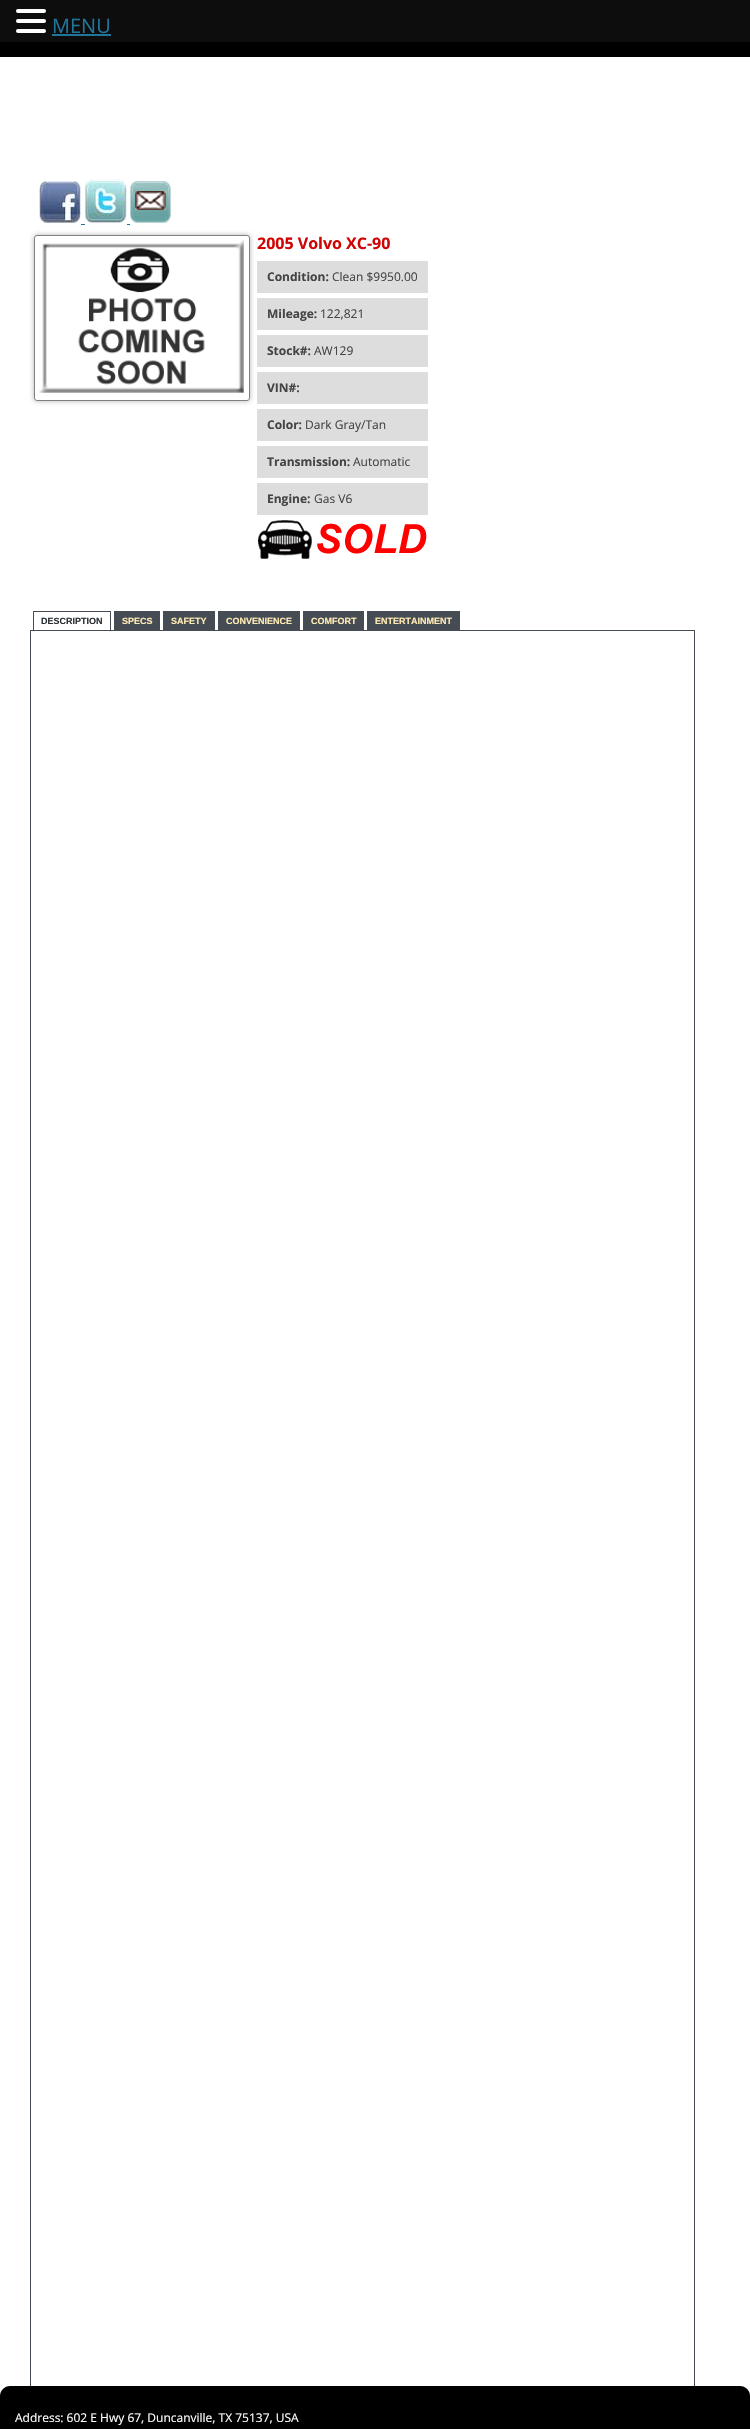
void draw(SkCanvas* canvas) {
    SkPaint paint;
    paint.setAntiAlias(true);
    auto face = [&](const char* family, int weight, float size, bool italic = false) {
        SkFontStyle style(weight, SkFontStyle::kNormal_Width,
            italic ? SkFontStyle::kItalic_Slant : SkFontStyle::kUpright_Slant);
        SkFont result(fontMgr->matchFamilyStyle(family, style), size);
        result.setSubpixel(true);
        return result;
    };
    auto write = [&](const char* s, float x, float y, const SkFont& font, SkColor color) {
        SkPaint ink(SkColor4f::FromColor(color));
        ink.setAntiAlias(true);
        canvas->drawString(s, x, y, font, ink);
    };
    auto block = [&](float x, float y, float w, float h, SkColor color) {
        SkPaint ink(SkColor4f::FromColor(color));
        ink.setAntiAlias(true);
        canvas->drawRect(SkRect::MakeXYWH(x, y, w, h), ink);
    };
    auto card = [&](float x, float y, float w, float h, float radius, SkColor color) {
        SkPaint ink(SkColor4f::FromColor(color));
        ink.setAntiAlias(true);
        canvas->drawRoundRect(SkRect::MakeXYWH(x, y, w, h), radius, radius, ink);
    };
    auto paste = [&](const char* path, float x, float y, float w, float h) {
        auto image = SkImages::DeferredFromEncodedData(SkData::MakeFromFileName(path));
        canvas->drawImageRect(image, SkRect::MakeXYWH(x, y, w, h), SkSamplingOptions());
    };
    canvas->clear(SK_ColorWHITE);
    block(0, 0, 750, 42, SkColorSetRGB(13, 13, 13));
    card(16, 9, 30, 4, 2, SK_ColorWHITE);
    card(16, 19, 30, 4, 2, SK_ColorWHITE);
    card(16, 29, 30, 4, 2, SK_ColorWHITE);
    auto kFont1 = face("Open Sans", 400, 20);
    write("MENU", 52, 33, kFont1, SkColorSetRGB(33, 117, 155));
    block(52, 34, 59, 2, SkColorSetRGB(33, 117, 155));
    block(0, 42, 750, 15, SK_ColorBLACK);
    paste("pic1.png", 39, 181, 42, 42);
    paste("pic2.png", 85, 179, 42, 44);
    paste("pic3.png", 130, 181, 41, 42);
    block(81, 224, 4, 1, SkColorSetRGB(33, 117, 155));
    block(127, 224, 3, 1, SkColorSetRGB(33, 117, 155));
    canvas->save();
    canvas->clipPath(SkPathBuilder(SkPathFillType::kEvenOdd).moveTo(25, 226).lineTo(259, 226).lineTo(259, 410).lineTo(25, 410).close().moveTo(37, 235).lineTo(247, 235).cubicTo(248.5f, 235, 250, 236.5f, 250, 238).lineTo(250, 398).cubicTo(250, 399.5f, 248.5f, 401, 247, 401).lineTo(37, 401).cubicTo(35.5f, 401, 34, 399.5f, 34, 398).lineTo(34, 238).cubicTo(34, 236.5f, 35.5f, 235, 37, 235).close().detach(), true);
    paint.setColor(SkColorSetARGB(77, 0, 0, 0));
    paint.setMaskFilter(SkMaskFilter::MakeBlur(kNormal_SkBlurStyle, 2.5f));
    canvas->drawRoundRect(SkRect::MakeXYWH(34, 235, 216, 166), 3, 3, paint);
    paint.setMaskFilter(nullptr);
    canvas->restore();
    paint.setStyle(SkPaint::kStroke_Style);
    paint.setStrokeWidth(1);
    paint.setColor(SkColorSetRGB(128, 128, 128));
    canvas->drawRoundRect(SkRect::MakeXYWH(34.5f, 235.5f, 215, 165), 2.5f, 2.5f, paint);
    paste("pic4.png", 39, 240, 205, 153);
    auto kFont2 = face("Open Sans", 700, 16);
    write("2005 Volvo XC-90", 257, 249, kFont2, SkColorSetRGB(209, 4, 4));
    block(257, 261, 171, 32, SkColorSetRGB(221, 221, 221));
    auto kFont3 = face("Open Sans", 700, 12);
    write("Condition:", 267, 281, kFont3, SkColorSetRGB(68, 68, 68));
    auto kFont4 = face("Open Sans", 400, 12);
    write("Clean $9950.00", 332, 281, kFont4, SkColorSetRGB(68, 68, 68));
    block(257, 298, 171, 32, SkColorSetRGB(221, 221, 221));
    write("Mileage:", 267, 318, kFont3, SkColorSetRGB(68, 68, 68));
    write("122,821", 320, 318, kFont4, SkColorSetRGB(68, 68, 68));
    block(257, 335, 171, 32, SkColorSetRGB(221, 221, 221));
    write("Stock#:", 267, 355, kFont3, SkColorSetRGB(68, 68, 68));
    write("AW129", 314, 355, kFont4, SkColorSetRGB(68, 68, 68));
    block(257, 372, 171, 32, SkColorSetRGB(221, 221, 221));
    write("VIN#:", 267, 392, kFont3, SkColorSetRGB(68, 68, 68));
    block(257, 409, 171, 32, SkColorSetRGB(221, 221, 221));
    write("Color:", 267, 429, kFont3, SkColorSetRGB(68, 68, 68));
    write("Dark Gray/Tan", 305, 429, kFont4, SkColorSetRGB(68, 68, 68));
    block(257, 446, 171, 32, SkColorSetRGB(221, 221, 221));
    write("Transmission:", 267, 466, kFont3, SkColorSetRGB(68, 68, 68));
    write("Automatic", 353, 466, kFont4, SkColorSetRGB(68, 68, 68));
    block(257, 483, 171, 32, SkColorSetRGB(221, 221, 221));
    write("Engine:", 267, 503, kFont3, SkColorSetRGB(68, 68, 68));
    write("Gas V6", 314, 503, kFont4, SkColorSetRGB(68, 68, 68));
    paste("pic5.png", 258, 520, 169, 39);
    auto kFont5 = face("Liberation Sans", 700, 9);
    write("DESCRIPTION", 41, 624, kFont5, SkColorSetRGB(40, 46, 50));
    block(33, 611, 78, 1, SkColorSetRGB(70, 76, 84));
    block(110, 611, 1, 24, SkColorSetRGB(70, 76, 84));
    block(33, 611, 1, 24, SkColorSetRGB(70, 76, 84));
    block(114, 611, 46, 19, SkColorSetRGB(70, 76, 84));
    write("SPECS", 122, 624, kFont5, SkColorSetRGB(255, 235, 181));
    block(163, 611, 52, 19, SkColorSetRGB(70, 76, 84));
    write("SAFETY", 171, 624, kFont5, SkColorSetRGB(255, 235, 181));
    block(218, 611, 82, 19, SkColorSetRGB(70, 76, 84));
    write("CONVENIENCE", 226, 624, kFont5, SkColorSetRGB(255, 235, 181));
    block(303, 611, 61, 19, SkColorSetRGB(70, 76, 84));
    write("COMFORT", 311, 624, kFont5, SkColorSetRGB(255, 235, 181));
    block(367, 611, 93, 19, SkColorSetRGB(70, 76, 84));
    write("ENTERTAINMENT", 375, 624, kFont5, SkColorSetRGB(255, 235, 181));
    block(33, 631, 78, 4, SK_ColorWHITE);
    paint.setColor(SkColorSetRGB(70, 76, 84));
    canvas->drawRect(SkRect::MakeXYWH(30.5f, 630.5f, 664, 1764), paint);
    paint.setStyle(SkPaint::kFill_Style);
    paint.setColor(SK_ColorBLACK);
    canvas->drawPath(SkPathBuilder().moveTo(10, 2386).lineTo(740, 2386).cubicTo(745.5f, 2386, 750, 2390.5f, 750, 2396).lineTo(750, 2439).lineTo(0, 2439).lineTo(0, 2396).cubicTo(0, 2390.5f, 4.5f, 2386, 10, 2386).close().detach(), paint);
    write("Address: 602 E Hwy 67, Duncanville, TX 75137, USA", 15, 2422, kFont4, SK_ColorWHITE);
}
